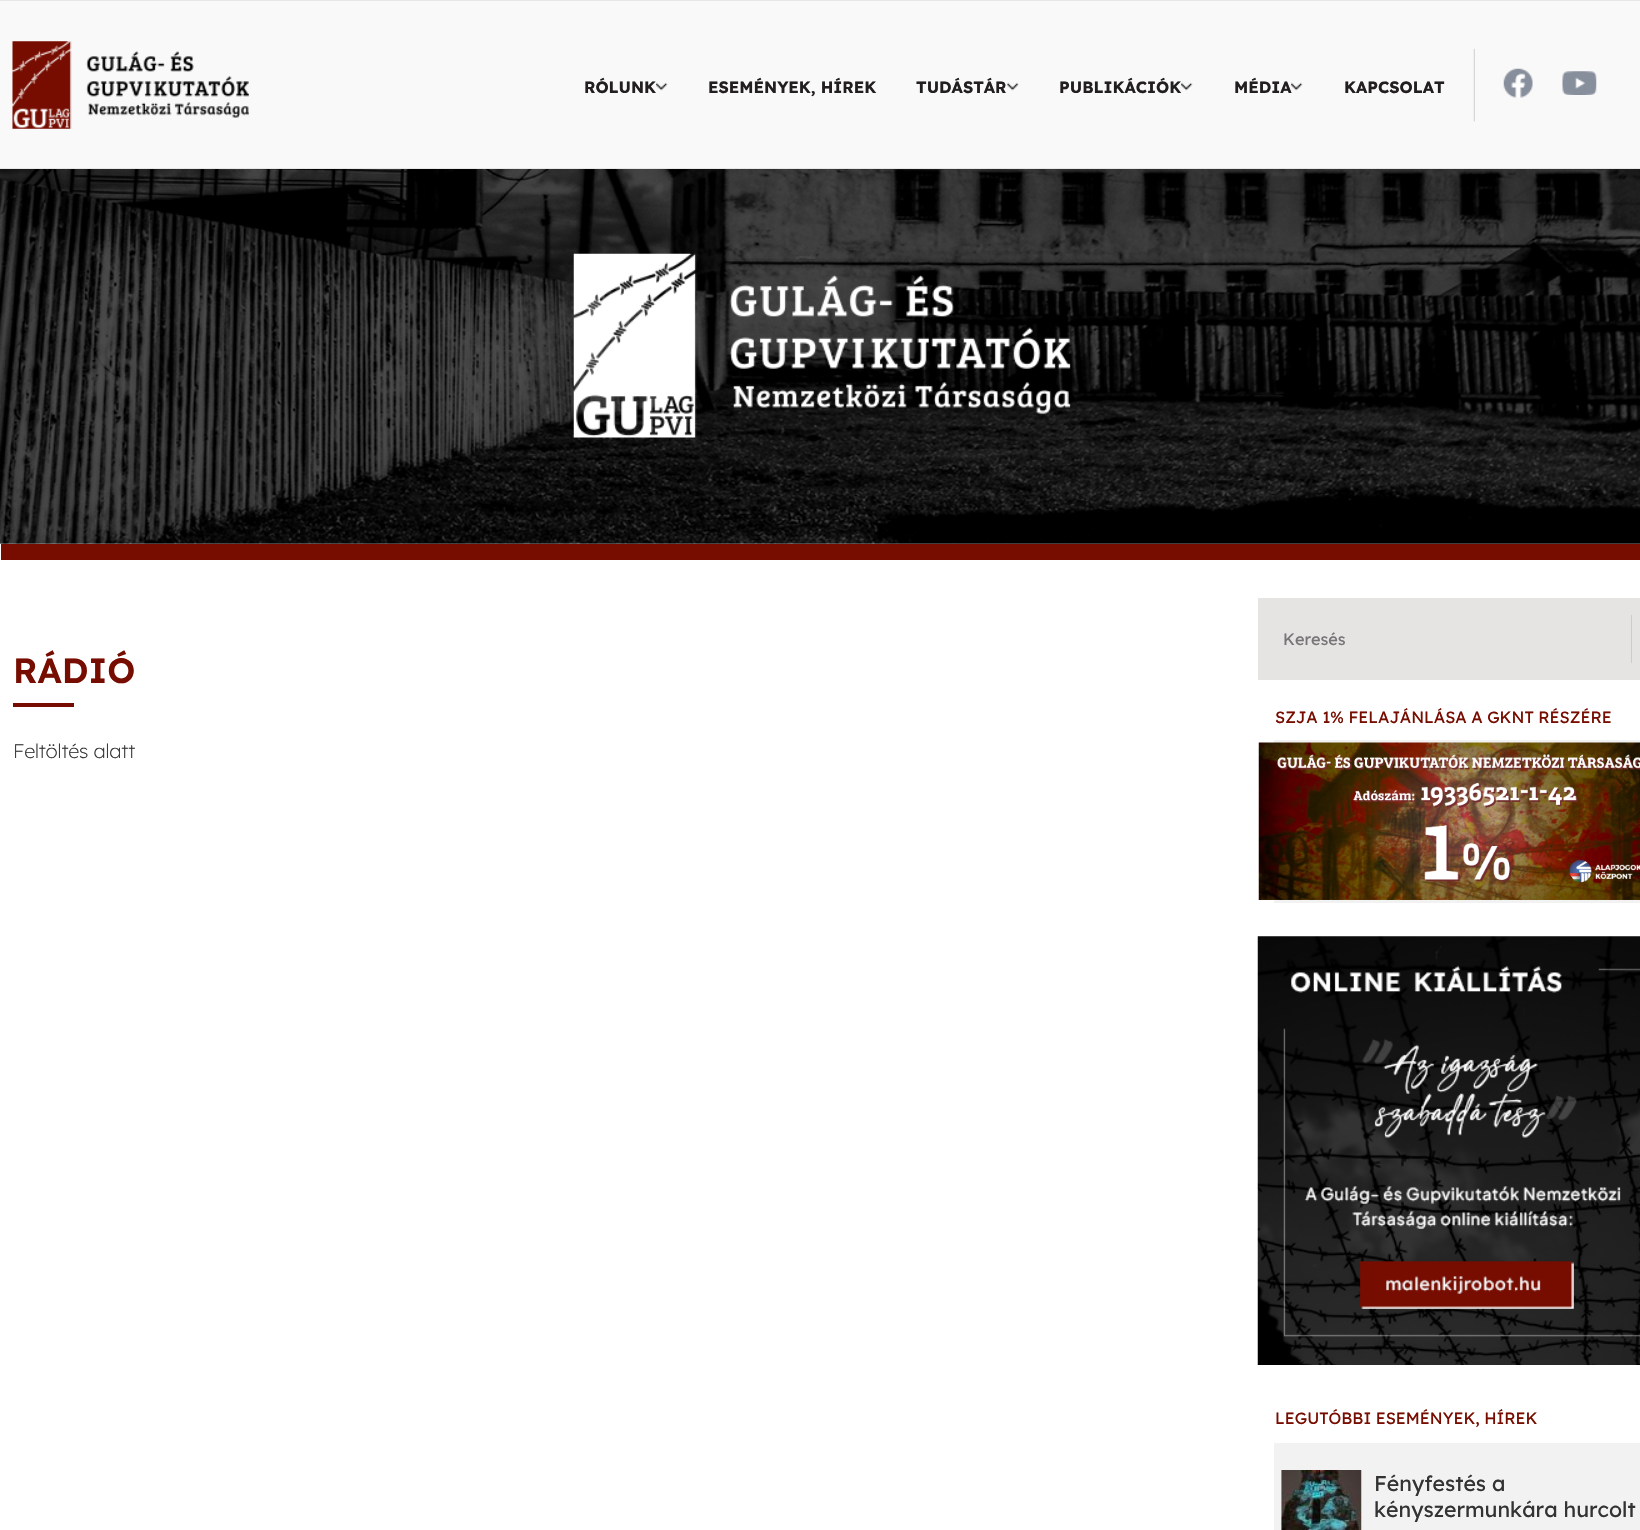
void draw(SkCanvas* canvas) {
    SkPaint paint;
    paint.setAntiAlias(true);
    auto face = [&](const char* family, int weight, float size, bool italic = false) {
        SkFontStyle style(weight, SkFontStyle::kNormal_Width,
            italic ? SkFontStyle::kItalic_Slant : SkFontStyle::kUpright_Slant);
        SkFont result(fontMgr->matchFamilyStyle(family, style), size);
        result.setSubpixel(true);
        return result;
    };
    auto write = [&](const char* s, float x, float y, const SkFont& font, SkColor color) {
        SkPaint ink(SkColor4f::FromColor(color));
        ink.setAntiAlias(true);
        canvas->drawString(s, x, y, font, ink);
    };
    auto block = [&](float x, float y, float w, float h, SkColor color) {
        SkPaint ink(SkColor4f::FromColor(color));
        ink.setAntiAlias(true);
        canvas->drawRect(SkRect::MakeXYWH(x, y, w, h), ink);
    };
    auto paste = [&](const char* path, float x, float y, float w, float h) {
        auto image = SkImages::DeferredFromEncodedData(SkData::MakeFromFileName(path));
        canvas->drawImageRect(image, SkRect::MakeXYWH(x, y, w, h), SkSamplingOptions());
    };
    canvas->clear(SK_ColorWHITE);
    block(0, 1, 1640, 167, SkColorSetRGB(250, 249, 249));
    block(0, 0, 1640, 1, SkColorSetRGB(231, 231, 231));
    block(0, 168, 1640, 1, SkColorSetRGB(231, 231, 231));
    paste("pic1.png", 12, 41, 237, 88);
    paste("pic2.png", 656, 82, 12, 9);
    auto kFont1 = face("Lexend", 700, 16.25f);
    write("RÓLUNK", 584, 93, kFont1, SkColorSetRGB(35, 31, 32));
    write("ESEMÉNYEK, HÍREK", 708, 93, kFont1, SkColorSetRGB(35, 31, 32));
    paste("pic3.png", 1007, 82, 12, 9);
    write("TUDÁSTÁR", 916, 93, kFont1, SkColorSetRGB(35, 31, 32));
    paste("pic2.png", 1181, 82, 12, 9);
    write("PUBLIKÁCIÓK", 1059, 93, kFont1, SkColorSetRGB(35, 31, 32));
    paste("pic2.png", 1291, 82, 12, 9);
    write("MÉDIA", 1234, 93, kFont1, SkColorSetRGB(35, 31, 32));
    write("KAPCSOLAT", 1344, 93, kFont1, SkColorSetRGB(35, 31, 32));
    paste("pic4.png", 1473, 48, 2, 74);
    paste("pic5.png", 1503, 68, 30, 30);
    paste("pic6.png", 1562, 71, 35, 24);
    paste("pic7.png", 0, 169, 1640, 375);
    block(1, 544, 1639, 16, SkColorSetRGB(119, 13, 0));
    auto kFont2 = face("Lexend", 600, 35);
    write("RÁDIÓ", 13, 683, kFont2, SkColorSetRGB(119, 13, 0));
    block(13, 703, 61, 4, SkColorSetRGB(119, 13, 0));
    auto kFont3 = face("Lexend", 200, 19.5f);
    write("Feltöltés alatt", 13, 758, kFont3, SkColorSetRGB(51, 51, 51));
    block(1258, 598, 382, 82, SkColorSetRGB(230, 227, 227));
    block(1631, 615, 1, 48, SkColorSetRGB(204, 204, 204));
    auto kFont4 = face("Lexend", 400, 16.25f);
    write("Keresés", 1283, 645, kFont4, SkColorSetRGB(117, 117, 117));
    write("SZJA 1% FELAJÁNLÁSA A GKNT RÉSZÉRE", 1275, 723, kFont4, SkColorSetRGB(119, 13, 0));
    block(1274, 740, 366, 163, SkColorSetRGB(242, 242, 242));
    paste("pic8.png", 1258, 742, 382, 158);
    paste("pic9.png", 1257, 936, 383, 429);
    write("LEGUTÓBBI ESEMÉNYEK, HÍREK", 1275, 1424, kFont4, SkColorSetRGB(119, 13, 0));
    block(1274, 1443, 366, 87, SkColorSetRGB(242, 242, 242));
    paste("pic10.png", 1281, 1470, 81, 60);
    auto kFont5 = face("Lexend", 400, 21.25f);
    write("Fényfestés a", 1374, 1491, kFont5, SkColorSetRGB(51, 51, 51));
    write("kényszermunkára hurcolt", 1374, 1517, kFont5, SkColorSetRGB(51, 51, 51));
}
